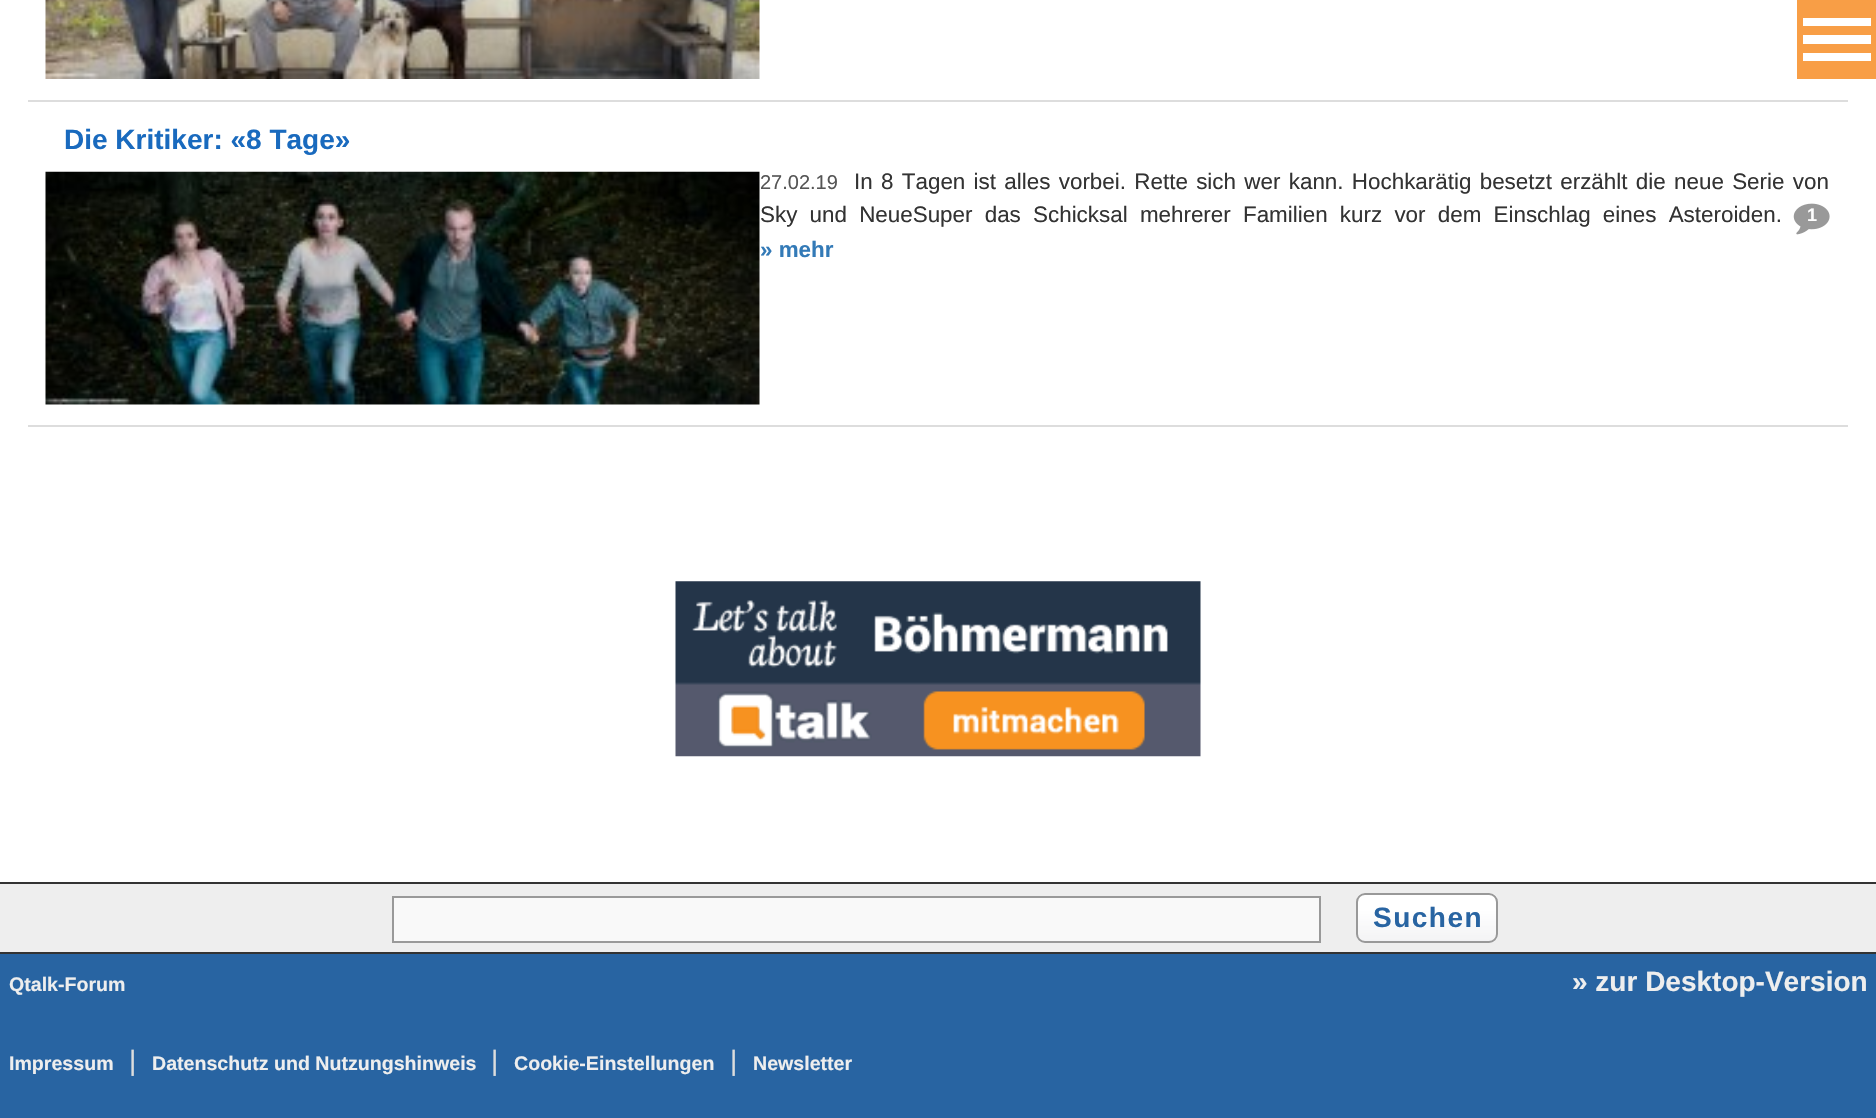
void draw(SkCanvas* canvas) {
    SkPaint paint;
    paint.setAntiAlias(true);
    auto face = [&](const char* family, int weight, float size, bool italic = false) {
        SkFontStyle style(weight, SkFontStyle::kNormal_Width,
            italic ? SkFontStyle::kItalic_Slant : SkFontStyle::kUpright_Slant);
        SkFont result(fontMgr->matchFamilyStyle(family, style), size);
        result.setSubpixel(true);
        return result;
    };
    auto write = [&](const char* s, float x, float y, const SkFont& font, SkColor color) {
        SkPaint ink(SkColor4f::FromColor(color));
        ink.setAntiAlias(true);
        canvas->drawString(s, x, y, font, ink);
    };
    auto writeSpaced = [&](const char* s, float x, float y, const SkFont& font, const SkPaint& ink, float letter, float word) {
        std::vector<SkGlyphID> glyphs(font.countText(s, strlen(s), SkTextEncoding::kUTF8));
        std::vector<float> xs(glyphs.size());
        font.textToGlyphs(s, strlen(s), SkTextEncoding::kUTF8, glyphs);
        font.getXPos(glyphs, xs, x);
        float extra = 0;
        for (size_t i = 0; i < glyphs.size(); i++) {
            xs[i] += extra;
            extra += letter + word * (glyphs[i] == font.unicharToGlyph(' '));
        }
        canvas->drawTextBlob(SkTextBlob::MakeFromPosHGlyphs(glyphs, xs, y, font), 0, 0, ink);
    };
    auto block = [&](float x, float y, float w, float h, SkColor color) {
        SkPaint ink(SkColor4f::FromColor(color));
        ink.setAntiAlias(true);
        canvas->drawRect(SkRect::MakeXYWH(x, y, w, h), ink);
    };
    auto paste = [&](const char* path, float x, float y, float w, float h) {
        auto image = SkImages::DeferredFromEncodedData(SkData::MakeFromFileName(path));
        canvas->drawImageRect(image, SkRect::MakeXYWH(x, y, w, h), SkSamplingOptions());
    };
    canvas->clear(SK_ColorWHITE);
    block(1797, 0, 79, 79, SkColorSetRGB(248, 158, 70));
    block(1803, 18, 68, 8, SK_ColorWHITE);
    block(1803, 35, 68, 9, SK_ColorWHITE);
    block(1803, 53, 68, 8, SK_ColorWHITE);
    block(28, 100, 1820, 2, SkColorSetRGB(221, 221, 221));
    paste("pic1.png", 45, 0, 715, 79);
    block(28, 425, 1820, 2, SkColorSetRGB(221, 221, 221));
    auto kFont1 = face("Liberation Sans", 700, 28);
    write("Die Kritiker: «8 Tage»", 64, 149, kFont1, SkColorSetRGB(25, 106, 190));
    paste("pic2.png", 45, 171, 715, 234);
    auto kFont2 = face("Liberation Sans", 400, 20);
    write("27.02.19", 760, 189, kFont2, SkColorSetRGB(85, 85, 85));
    auto kFont3 = face("Liberation Sans", 400, 22.4f);
    paint.setColor(SkColorSetRGB(51, 51, 51));
    writeSpaced("In 8 Tagen ist alles vorbei. Rette sich wer kann. Hochkarätig besetzt erzählt die neue Serie von", 854, 189, kFont3, paint, 0, 2.1f);
    writeSpaced("Sky und NeueSuper das Schicksal mehrerer Familien kurz vor dem Einschlag eines Asteroiden.", 760, 222, kFont3, paint, 0, 6);
    paste("pic3.png", 1793, 203, 37, 32);
    auto kFont4 = face("Liberation Sans", 700, 18);
    write("1", 1807, 221, kFont4, SK_ColorWHITE);
    auto kFont5 = face("Liberation Sans", 700, 22.4f);
    write("» mehr", 760, 257, kFont5, SkColorSetRGB(51, 122, 183));
    paste("pic4.png", 675, 581, 526, 176);
    block(0, 884, 1876, 68, SkColorSetRGB(238, 238, 238));
    block(0, 882, 1876, 2, SkColorSetRGB(51, 51, 51));
    block(0, 952, 1876, 2, SkColorSetRGB(51, 51, 51));
    paint.setColor(SkColorSetRGB(249, 249, 249));
    canvas->drawRect(SkRect::MakeXYWH(393, 897, 927, 45), paint);
    paint.setStyle(SkPaint::kStroke_Style);
    paint.setStrokeWidth(2);
    paint.setColor(SkColorSetRGB(153, 153, 153));
    canvas->drawRect(SkRect::MakeXYWH(393, 897, 927, 45), paint);
    paste("pic5.png", 1356, 893, 142, 50);
    canvas->drawRoundRect(SkRect::MakeXYWH(1357, 894, 140, 48), 8, 8, paint);
    paint.setStyle(SkPaint::kFill_Style);
    paint.setColor(SkColorSetRGB(40, 100, 162));
    writeSpaced("Suchen", 1373, 927, kFont1, paint, 1.5f, 0);
    block(0, 954, 1876, 164, SkColorSetRGB(40, 100, 162));
    auto kFont6 = face("Liberation Sans", 700, 19.6f);
    write("Qtalk-Forum", 9, 991, kFont6, SkColorSetRGB(238, 238, 238));
    write("» zur Desktop-Version", 1572, 991, kFont1, SkColorSetRGB(238, 238, 238));
    write("Impressum", 9, 1070, kFont6, SkColorSetRGB(238, 238, 238));
    auto kFont7 = face("Liberation Sans", 400, 28);
    write("|", 129, 1070, kFont7, SkColorSetRGB(221, 221, 221));
    write("Datenschutz und Nutzungshinweis", 152, 1070, kFont6, SkColorSetRGB(238, 238, 238));
    write("|", 491, 1070, kFont7, SkColorSetRGB(221, 221, 221));
    write("Cookie-Einstellungen", 514, 1070, kFont6, SkColorSetRGB(238, 238, 238));
    write("|", 730, 1070, kFont7, SkColorSetRGB(221, 221, 221));
    write("Newsletter", 753, 1070, kFont6, SkColorSetRGB(238, 238, 238));
}
